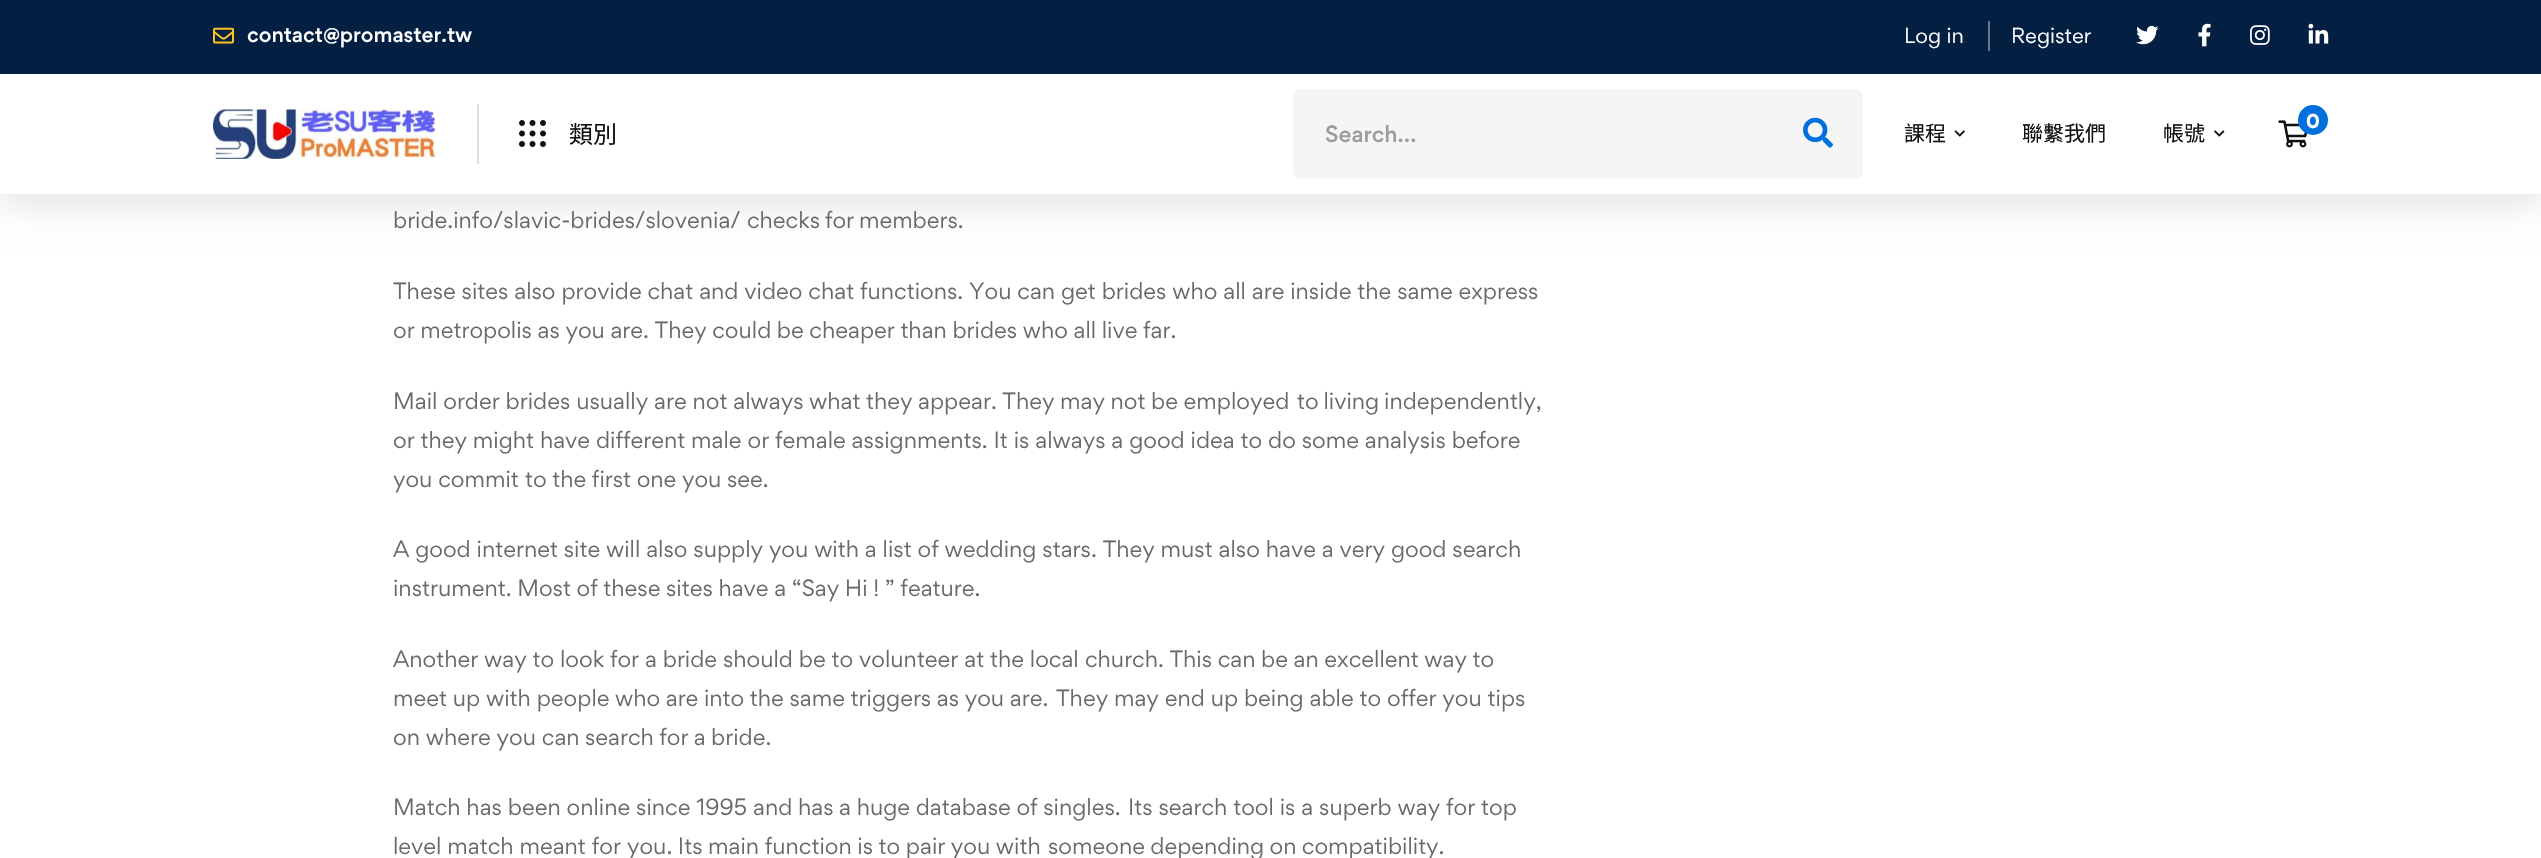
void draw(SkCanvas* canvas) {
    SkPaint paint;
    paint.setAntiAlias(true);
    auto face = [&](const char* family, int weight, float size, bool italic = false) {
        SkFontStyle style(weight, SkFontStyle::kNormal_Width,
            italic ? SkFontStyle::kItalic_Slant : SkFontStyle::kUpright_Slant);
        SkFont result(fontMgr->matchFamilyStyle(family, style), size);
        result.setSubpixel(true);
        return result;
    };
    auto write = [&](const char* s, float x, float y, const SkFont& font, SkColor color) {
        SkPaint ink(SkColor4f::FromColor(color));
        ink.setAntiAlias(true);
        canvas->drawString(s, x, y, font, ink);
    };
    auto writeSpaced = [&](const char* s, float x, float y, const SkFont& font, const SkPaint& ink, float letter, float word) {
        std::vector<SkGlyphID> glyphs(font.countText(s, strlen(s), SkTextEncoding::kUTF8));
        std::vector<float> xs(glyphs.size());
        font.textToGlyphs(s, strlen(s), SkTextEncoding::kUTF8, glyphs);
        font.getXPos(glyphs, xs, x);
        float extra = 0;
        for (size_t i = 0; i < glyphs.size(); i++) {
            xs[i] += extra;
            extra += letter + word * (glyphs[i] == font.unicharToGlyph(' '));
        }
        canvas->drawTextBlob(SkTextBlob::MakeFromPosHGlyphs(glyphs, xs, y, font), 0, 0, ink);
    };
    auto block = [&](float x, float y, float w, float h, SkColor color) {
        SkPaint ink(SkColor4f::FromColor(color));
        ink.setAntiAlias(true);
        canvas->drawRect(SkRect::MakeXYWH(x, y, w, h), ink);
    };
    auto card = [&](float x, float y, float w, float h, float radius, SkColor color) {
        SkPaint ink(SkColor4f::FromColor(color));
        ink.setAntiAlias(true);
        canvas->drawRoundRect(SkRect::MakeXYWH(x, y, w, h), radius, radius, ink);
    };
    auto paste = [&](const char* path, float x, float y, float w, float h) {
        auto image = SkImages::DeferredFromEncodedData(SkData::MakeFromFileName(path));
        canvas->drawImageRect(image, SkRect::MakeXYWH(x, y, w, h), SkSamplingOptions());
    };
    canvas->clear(SK_ColorWHITE);
    paint.setColor(SkColorSetARGB(26, 0, 0, 0));
    paint.setMaskFilter(SkMaskFilter::MakeBlur(kNormal_SkBlurStyle, 15));
    canvas->drawRect(SkRect::MakeXYWH(0, 12, 2541, 194), paint);
    paint.setMaskFilter(nullptr);
    block(0, 74, 2541, 120, SK_ColorWHITE);
    block(0, 0, 2541, 74, SkColorSetRGB(3, 31, 66));
    paste("pic1.png", 213, 27, 21, 17);
    auto kFont1 = face("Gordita", 500, 19.5f);
    write("contact@promaster.tw", 247, 42, kFont1, SK_ColorWHITE);
    auto kFont2 = face("Gordita", 400, 19.5f);
    write("Log in", 1904, 43, kFont2, SK_ColorWHITE);
    block(1988, 21, 2, 30, SkColorSetRGB(104, 121, 142));
    write("Register", 2011, 43, kFont2, SK_ColorWHITE);
    paste("pic2.png", 2136, 25, 23, 20);
    paste("pic3.png", 2198, 23, 13, 24);
    paste("pic4.png", 2250, 25, 20, 20);
    paste("pic5.png", 2308, 23, 21, 21);
    paste("pic6.png", 213, 109, 222, 50);
    block(477, 104, 2, 60, SkColorSetRGB(217, 222, 227));
    paste("pic7.png", 519, 120, 27, 27);
    auto kFont3 = face("Noto Sans CJK TC", 400, 24);
    write("類別", 569, 143, kFont3, SkColorSetRGB(17, 17, 17));
    paste("pic8.png", 2278, 120, 30, 28);
    paint.setColor(SkColorSetRGB(0, 113, 220));
    canvas->drawCircle(2313, 120, 15, paint);
    auto kFont4 = face("Gordita", 700, 18);
    write("0", 2306, 128, kFont4, SK_ColorWHITE);
    card(1293, 89, 570, 90, 8, SkColorSetRGB(245, 245, 245));
    auto kFont5 = face("Gordita", 500, 21);
    write("Search…", 1325, 142, kFont5, SkColorSetRGB(155, 155, 155));
    paste("pic9.png", 1803, 117, 30, 31);
    auto kFont6 = face("Noto Sans CJK TC", 400, 21);
    write("課程", 1904, 141, kFont6, SkColorSetRGB(17, 17, 17));
    paste("pic10.png", 1954, 130, 11, 7);
    write("聯繫我們", 2022, 141, kFont6, SkColorSetRGB(17, 17, 17));
    write("帳號", 2163, 141, kFont6, SkColorSetRGB(17, 17, 17));
    paste("pic11.png", 2214, 130, 11, 7);
    auto kFont7 = face("Gordita", 400, 21);
    write("bride.info/slavic-brides/slovenia/", 393, 228, kFont7, SkColorSetRGB(105, 105, 105));
    paint.setColor(SkColorSetRGB(105, 105, 105));
    writeSpaced("checks for members.", 747, 228, kFont7, paint, 0, -1);
    write("These sites also provide chat and video chat functions. You can get brides who all are inside the same express", 393, 299, kFont7, SkColorSetRGB(105, 105, 105));
    writeSpaced("or metropolis as you are. They could be cheaper than brides who all live far.", 393, 338, kFont7, paint, 0, -0.25f);
    write("Mail order brides usually are not always", 393, 409, kFont7, SkColorSetRGB(105, 105, 105));
    writeSpaced("what they appear. They may not be employed", 809, 409, kFont7, paint, 0, -0.25f);
    writeSpaced("to living independently,", 1297, 409, kFont7, paint, 0, -1);
    write("or they might have different male or female assignments. It is always a good idea to do some analysis before", 393, 448, kFont7, SkColorSetRGB(105, 105, 105));
    write("you commit", 393, 487, kFont7, SkColorSetRGB(105, 105, 105));
    writeSpaced("to the first one you see.", 525, 487, kFont7, paint, 0, -0.25f);
    write("A good internet site will also supply you with a list of wedding stars. They must also have a very good search", 393, 557, kFont7, SkColorSetRGB(105, 105, 105));
    writeSpaced("instrument. Most of these sites have a “Say Hi ! ” feature.", 393, 596, kFont7, paint, 0, -0.25f);
    write("Another way to look for a bride should be to volunteer at the local", 393, 667, kFont7, SkColorSetRGB(105, 105, 105));
    writeSpaced("church. This can be an excellent way to", 1085, 667, kFont7, paint, 0, -0.25f);
    write("meet up with people", 393, 706, kFont7, SkColorSetRGB(105, 105, 105));
    writeSpaced("who are into the same triggers as you are.", 615, 706, kFont7, paint, 0, -0.25f);
    write("They may end up being able to offer you tips", 1056, 706, kFont7, SkColorSetRGB(105, 105, 105));
    write("on where you can", 393, 745, kFont7, SkColorSetRGB(105, 105, 105));
    writeSpaced("search for a bride.", 585, 745, kFont7, paint, 0, -0.5f);
    write("Match has been online since 1995", 393, 815, kFont7, SkColorSetRGB(105, 105, 105));
    writeSpaced("and has a huge database of singles.", 753, 815, kFont7, paint, 0, -0.25f);
    write("Its search tool is a superb way for top", 1128, 815, kFont7, SkColorSetRGB(105, 105, 105));
    write("level match meant for", 393, 854, kFont7, SkColorSetRGB(105, 105, 105));
    writeSpaced("you. Its main function is to pair you with", 627, 854, kFont7, paint, 0, -0.25f);
    writeSpaced("someone depending on compatibility.", 1048, 854, kFont7, paint, 0, -0.5f);
}
